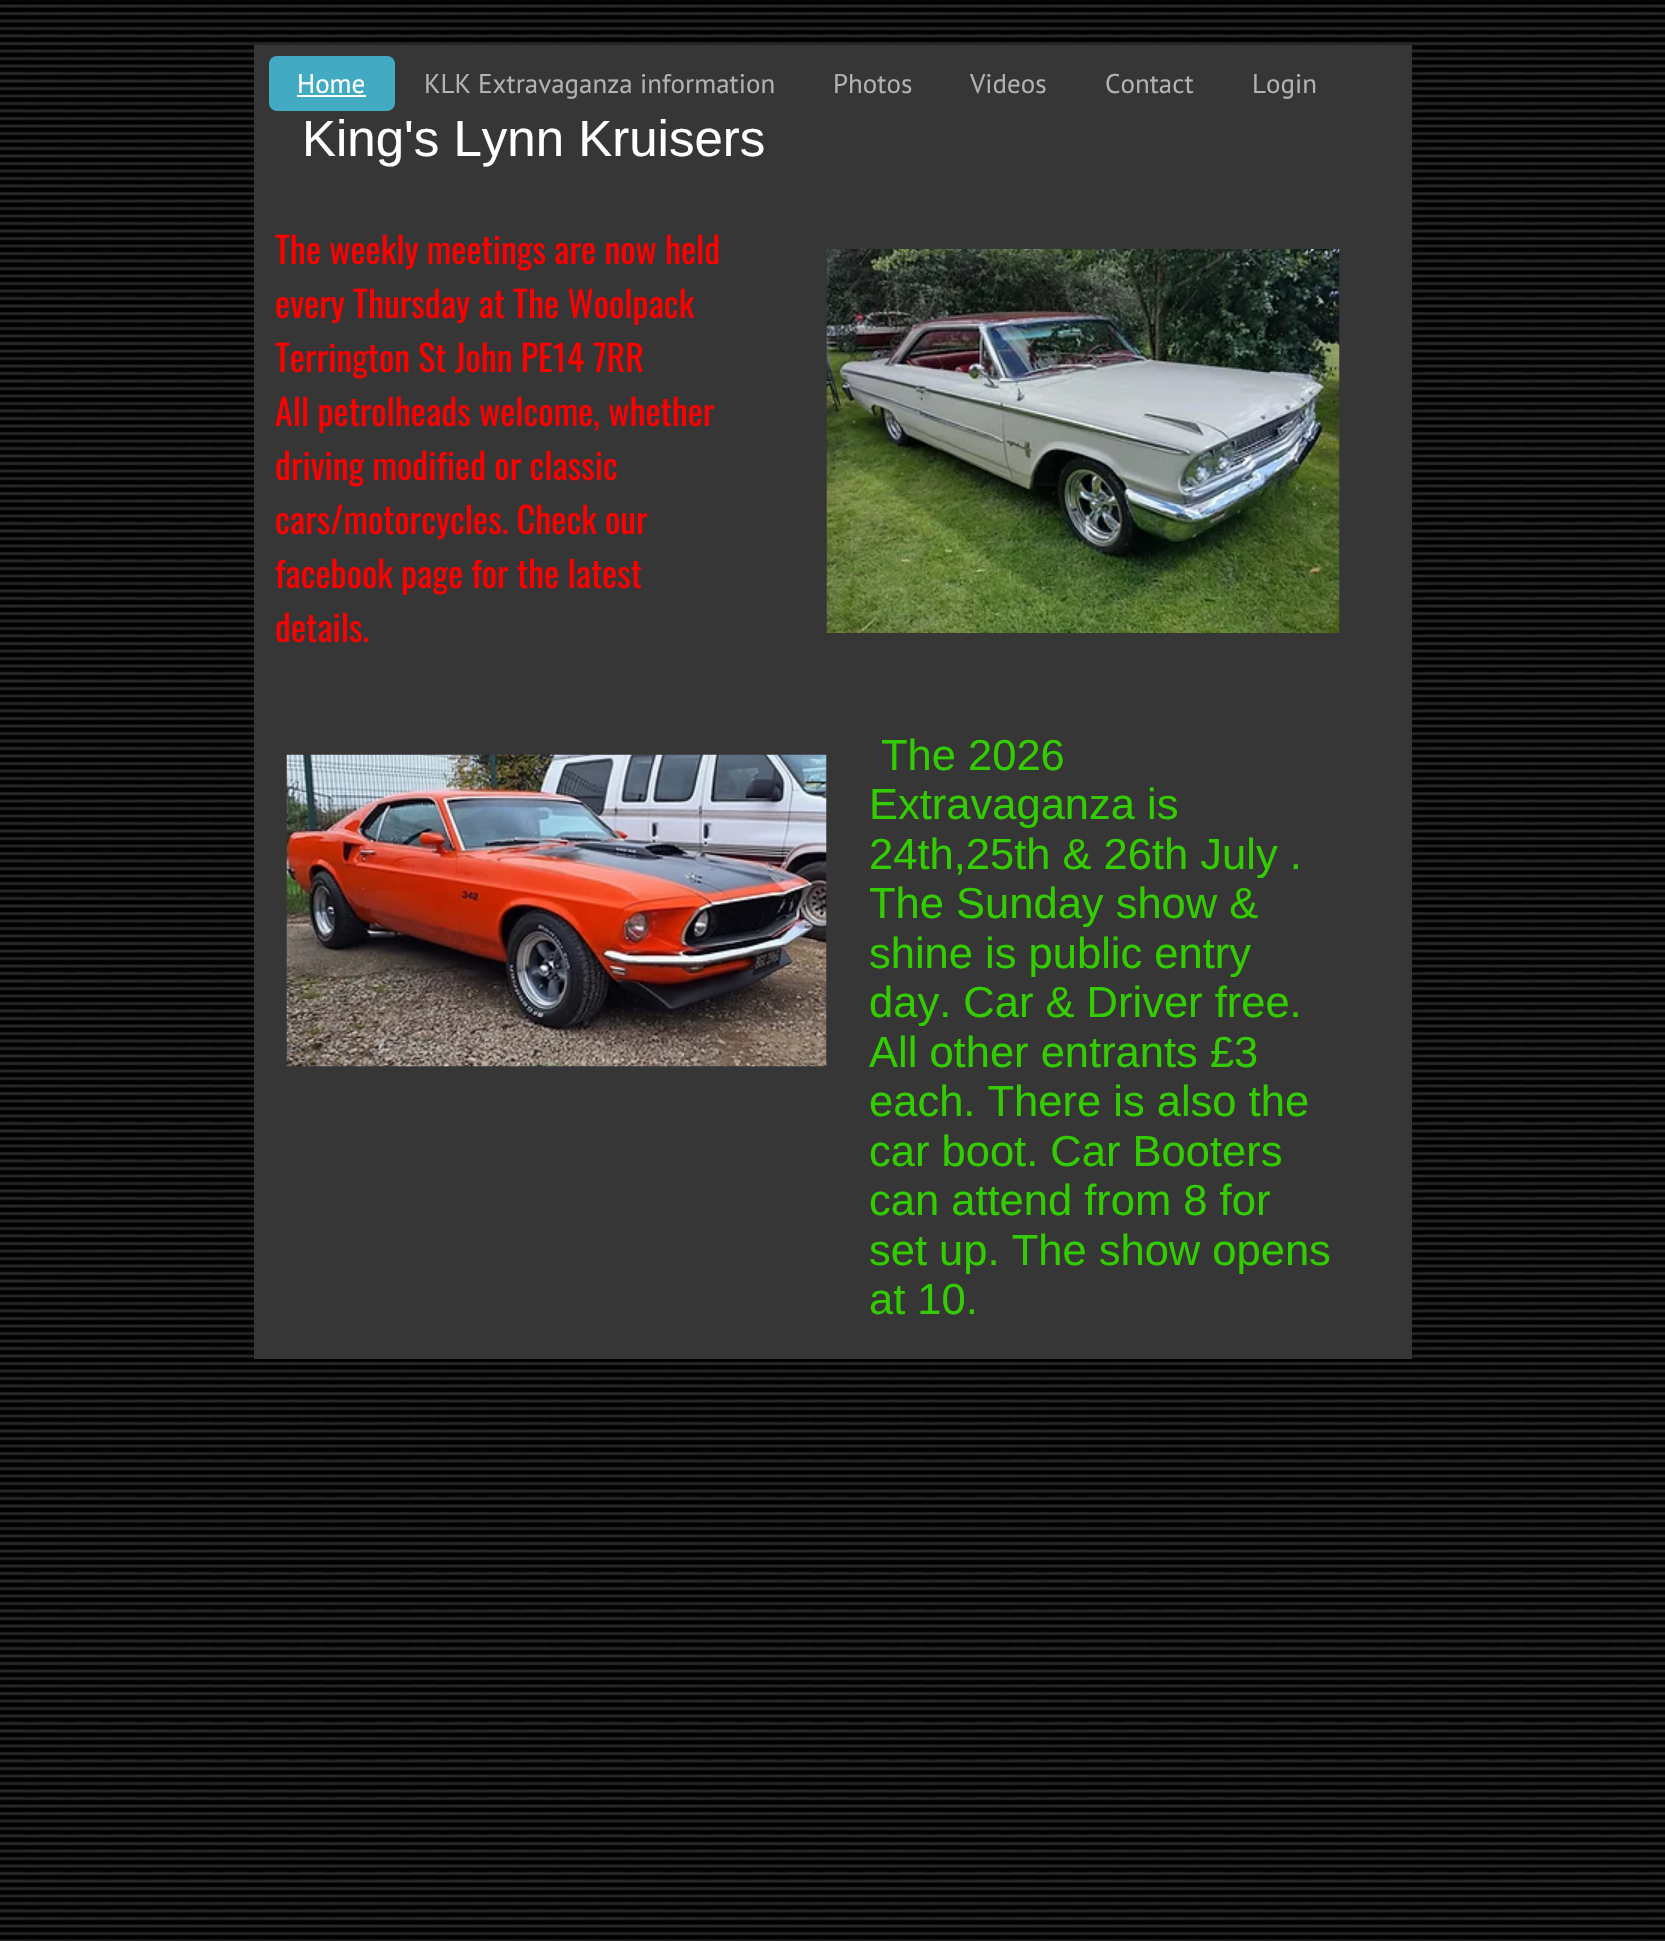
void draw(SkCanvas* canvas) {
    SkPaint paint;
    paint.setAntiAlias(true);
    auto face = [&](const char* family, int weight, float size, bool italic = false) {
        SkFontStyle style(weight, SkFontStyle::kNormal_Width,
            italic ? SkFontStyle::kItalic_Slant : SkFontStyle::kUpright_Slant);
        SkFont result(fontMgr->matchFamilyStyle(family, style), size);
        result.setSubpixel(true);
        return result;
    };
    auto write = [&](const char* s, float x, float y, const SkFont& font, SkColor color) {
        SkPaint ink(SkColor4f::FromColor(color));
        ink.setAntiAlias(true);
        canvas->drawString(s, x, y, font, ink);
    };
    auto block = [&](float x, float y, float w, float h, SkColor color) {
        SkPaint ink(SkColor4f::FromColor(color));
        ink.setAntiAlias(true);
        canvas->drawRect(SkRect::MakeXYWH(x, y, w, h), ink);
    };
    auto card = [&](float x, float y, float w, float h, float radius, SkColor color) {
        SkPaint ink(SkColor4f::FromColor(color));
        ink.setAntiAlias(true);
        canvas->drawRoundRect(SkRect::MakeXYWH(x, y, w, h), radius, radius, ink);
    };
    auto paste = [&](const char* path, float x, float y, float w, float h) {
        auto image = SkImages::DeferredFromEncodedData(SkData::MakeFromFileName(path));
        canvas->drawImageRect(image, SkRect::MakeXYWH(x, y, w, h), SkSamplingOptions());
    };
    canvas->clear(SK_ColorWHITE);
    paste("pic1.png", 0, 0, 1665, 1941);
    block(254, 45, 1158, 1314, SkColorSetRGB(54, 54, 54));
    card(269, 56, 126, 55, 8, SkColorSetRGB(66, 171, 195));
    auto kFont1 = face("PT Sans", 400, 27);
    write("Home", 297, 93, kFont1, SK_ColorWHITE);
    block(297, 95, 69, 2, SK_ColorWHITE);
    write("KLK Extravaganza information", 424, 93, kFont1, SkColorSetRGB(178, 178, 178));
    write("Photos", 833, 93, kFont1, SkColorSetRGB(178, 178, 178));
    write("Videos", 970, 93, kFont1, SkColorSetRGB(178, 178, 178));
    write("Contact", 1105, 93, kFont1, SkColorSetRGB(178, 178, 178));
    write("Login", 1252, 93, kFont1, SkColorSetRGB(178, 178, 178));
    auto kFont2 = face("Liberation Sans", 400, 51);
    write("King's Lynn Kruisers", 302, 156, kFont2, SK_ColorWHITE);
    auto kFont3 = face("Oswald", 400, 36);
    write("The weekly meetings are now held", 275, 264, kFont3, SkColorSetRGB(255, 0, 0));
    write("every Thursday at The Woolpack", 275, 318, kFont3, SkColorSetRGB(255, 0, 0));
    write("Terrington St John PE14 7RR", 275, 372, kFont3, SkColorSetRGB(255, 0, 0));
    write("All petrolheads welcome, whether", 275, 426, kFont3, SkColorSetRGB(255, 0, 0));
    write("driving modified or classic", 275, 480, kFont3, SkColorSetRGB(255, 0, 0));
    write("cars/motorcycles. Check our", 275, 534, kFont3, SkColorSetRGB(255, 0, 0));
    write("facebook page for the latest", 275, 588, kFont3, SkColorSetRGB(255, 0, 0));
    write("details.", 275, 642, kFont3, SkColorSetRGB(255, 0, 0));
    paste("pic2.png", 286, 754, 541, 313);
    paste("pic3.png", 826, 249, 514, 384);
    auto kFont4 = face("Liberation Sans", 400, 43.5f);
    write("The 2026", 881, 770, kFont4, SkColorSetRGB(51, 204, 0));
    write("Extravaganza is", 869, 819, kFont4, SkColorSetRGB(51, 204, 0));
    write("24th,25th & 26th July .", 869, 869, kFont4, SkColorSetRGB(51, 204, 0));
    write("The Sunday show &", 869, 918, kFont4, SkColorSetRGB(51, 204, 0));
    write("shine is public entry", 869, 968, kFont4, SkColorSetRGB(51, 204, 0));
    write("day. Car & Driver free.", 869, 1017, kFont4, SkColorSetRGB(51, 204, 0));
    write("All other entrants £3", 869, 1067, kFont4, SkColorSetRGB(51, 204, 0));
    write("each. There is also the", 869, 1116, kFont4, SkColorSetRGB(51, 204, 0));
    write("car boot. Car Booters", 869, 1166, kFont4, SkColorSetRGB(51, 204, 0));
    write("can attend from 8 for", 869, 1215, kFont4, SkColorSetRGB(51, 204, 0));
    write("set up. The show opens", 869, 1265, kFont4, SkColorSetRGB(51, 204, 0));
    write("at 10.", 869, 1314, kFont4, SkColorSetRGB(51, 204, 0));
}
